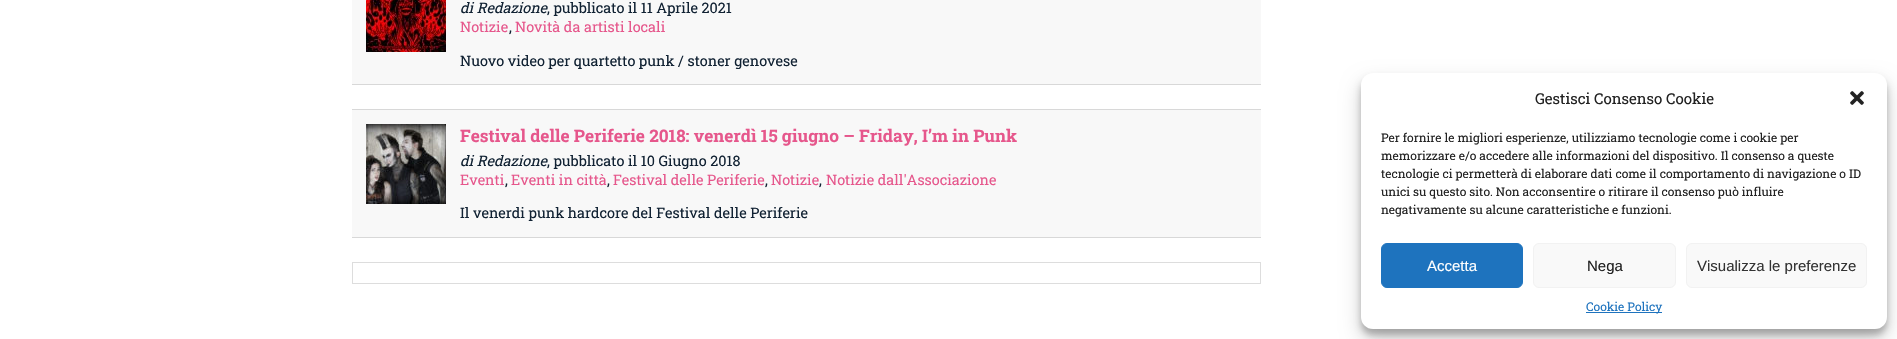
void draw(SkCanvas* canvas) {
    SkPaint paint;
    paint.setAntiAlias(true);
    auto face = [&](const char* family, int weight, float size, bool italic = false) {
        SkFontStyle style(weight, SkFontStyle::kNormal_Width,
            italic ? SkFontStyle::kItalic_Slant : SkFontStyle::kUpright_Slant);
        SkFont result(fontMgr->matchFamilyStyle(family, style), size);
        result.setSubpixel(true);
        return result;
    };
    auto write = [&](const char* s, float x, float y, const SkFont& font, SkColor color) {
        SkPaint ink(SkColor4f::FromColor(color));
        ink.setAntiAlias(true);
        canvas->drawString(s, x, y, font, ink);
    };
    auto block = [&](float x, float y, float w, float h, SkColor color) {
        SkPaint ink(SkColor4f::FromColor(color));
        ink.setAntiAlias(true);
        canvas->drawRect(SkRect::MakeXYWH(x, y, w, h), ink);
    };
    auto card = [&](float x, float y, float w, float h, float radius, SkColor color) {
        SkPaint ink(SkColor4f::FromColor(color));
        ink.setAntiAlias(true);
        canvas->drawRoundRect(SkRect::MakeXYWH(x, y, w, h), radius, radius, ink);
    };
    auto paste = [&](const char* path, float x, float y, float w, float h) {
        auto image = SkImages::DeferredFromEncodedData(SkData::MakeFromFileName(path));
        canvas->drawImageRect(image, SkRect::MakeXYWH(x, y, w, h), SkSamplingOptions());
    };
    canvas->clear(SK_ColorWHITE);
    block(352, 0, 909, 84, SkColorSetRGB(248, 248, 248));
    block(352, 84, 909, 1, SkColorSetRGB(216, 216, 216));
    paste("pic1.png", 366, 0, 80, 52);
    auto kFont1 = face("Roboto Slab", 400, 14.4f, true);
    write("di Redazione", 460, 13, kFont1, SkColorSetRGB(17, 34, 51));
    auto kFont2 = face("Roboto Slab", 400, 14.4f);
    write(", pubblicato il 11 Aprile 2021", 547, 13, kFont2, SkColorSetRGB(17, 34, 51));
    write("Notizie", 460, 32, kFont2, SkColorSetRGB(230, 87, 140));
    write(",", 509, 32, kFont2, SkColorSetRGB(17, 34, 51));
    write("Novità da artisti locali", 515, 32, kFont2, SkColorSetRGB(230, 87, 140));
    write("Nuovo video per quartetto punk / stoner genovese", 460, 66, kFont2, SkColorSetRGB(17, 34, 51));
    block(352, 110, 909, 127, SkColorSetRGB(248, 248, 248));
    block(352, 109, 909, 1, SkColorSetRGB(216, 216, 216));
    block(352, 237, 909, 1, SkColorSetRGB(216, 216, 216));
    paste("pic2.png", 366, 124, 80, 80);
    auto kFont3 = face("Roboto Slab", 700, 17.25f);
    write("Festival delle Periferie 2018: venerdì 15 giugno – Friday, I’m in Punk", 460, 142, kFont3, SkColorSetRGB(230, 87, 140));
    write("di Redazione", 460, 166, kFont1, SkColorSetRGB(17, 34, 51));
    write(", pubblicato il 10 Giugno 2018", 547, 166, kFont2, SkColorSetRGB(17, 34, 51));
    write("Eventi", 460, 185, kFont2, SkColorSetRGB(230, 87, 140));
    write(",", 505, 185, kFont2, SkColorSetRGB(17, 34, 51));
    write("Eventi in città", 511, 185, kFont2, SkColorSetRGB(230, 87, 140));
    write(",", 607, 185, kFont2, SkColorSetRGB(17, 34, 51));
    write("Festival delle Periferie", 613, 185, kFont2, SkColorSetRGB(230, 87, 140));
    write(",", 765, 185, kFont2, SkColorSetRGB(17, 34, 51));
    write("Notizie", 771, 185, kFont2, SkColorSetRGB(230, 87, 140));
    write(",", 819, 185, kFont2, SkColorSetRGB(17, 34, 51));
    write("Notizie dall'Associazione", 826, 185, kFont2, SkColorSetRGB(230, 87, 140));
    write("Il venerdi punk hardcore del Festival delle Periferie", 460, 218, kFont2, SkColorSetRGB(17, 34, 51));
    paint.setStyle(SkPaint::kStroke_Style);
    paint.setStrokeWidth(1);
    paint.setColor(SkColorSetRGB(221, 221, 221));
    canvas->drawRect(SkRect::MakeXYWH(352.5f, 262.5f, 908, 21), paint);
    paint.setStyle(SkPaint::kFill_Style);
    paint.setColor(SkColorSetARGB(59, 0, 0, 0));
    paint.setMaskFilter(SkMaskFilter::MakeBlur(kNormal_SkBlurStyle, 3));
    canvas->drawRoundRect(SkRect::MakeXYWH(1361, 79, 526, 256), 12, 12, paint);
    paint.setMaskFilter(nullptr);
    paint.setColor(SkColorSetARGB(48, 0, 0, 0));
    paint.setMaskFilter(SkMaskFilter::MakeBlur(kNormal_SkBlurStyle, 10));
    canvas->drawRoundRect(SkRect::MakeXYWH(1361, 83, 526, 256), 12, 12, paint);
    paint.setMaskFilter(nullptr);
    card(1361, 73, 526, 256, 12, SK_ColorWHITE);
    auto kFont4 = face("Roboto Slab", 400, 15);
    write("Gestisci Consenso Cookie", 1535, 104, kFont4, SkColorSetRGB(34, 34, 34));
    paste("pic3.png", 1850, 91, 14, 14);
    auto kFont5 = face("Roboto Slab", 400, 12);
    write("Per fornire le migliori esperienze, utilizziamo tecnologie come i cookie per", 1381, 142, kFont5, SkColorSetRGB(34, 34, 34));
    write("memorizzare e/o accedere alle informazioni del dispositivo. Il consenso a queste", 1381, 160, kFont5, SkColorSetRGB(34, 34, 34));
    write("tecnologie ci permetterà di elaborare dati come il comportamento di navigazione o ID", 1381, 178, kFont5, SkColorSetRGB(34, 34, 34));
    write("unici su questo sito. Non acconsentire o ritirare il consenso può influire", 1381, 196, kFont5, SkColorSetRGB(34, 34, 34));
    write("negativamente su alcune caratteristiche e funzioni.", 1381, 214, kFont5, SkColorSetRGB(34, 34, 34));
    paint.setColor(SkColorSetRGB(30, 115, 190));
    canvas->drawRoundRect(SkRect::MakeXYWH(1381.5f, 243.5f, 141, 44), 5.5f, 5.5f, paint);
    paint.setStyle(SkPaint::kStroke_Style);
    canvas->drawRoundRect(SkRect::MakeXYWH(1381.5f, 243.5f, 141, 44), 5.5f, 5.5f, paint);
    auto kFont6 = face("Liberation Sans", 400, 15);
    write("Accetta", 1427, 271, kFont6, SK_ColorWHITE);
    paint.setStyle(SkPaint::kFill_Style);
    paint.setColor(SkColorSetRGB(249, 249, 249));
    canvas->drawRoundRect(SkRect::MakeXYWH(1533.5f, 243.5f, 142, 44), 5.5f, 5.5f, paint);
    paint.setStyle(SkPaint::kStroke_Style);
    paint.setColor(SkColorSetRGB(242, 242, 242));
    canvas->drawRoundRect(SkRect::MakeXYWH(1533.5f, 243.5f, 142, 44), 5.5f, 5.5f, paint);
    write("Nega", 1587, 271, kFont6, SkColorSetRGB(34, 34, 34));
    paint.setStyle(SkPaint::kFill_Style);
    paint.setColor(SkColorSetRGB(249, 249, 249));
    canvas->drawRoundRect(SkRect::MakeXYWH(1686.5f, 243.5f, 180, 44), 5.5f, 5.5f, paint);
    paint.setStyle(SkPaint::kStroke_Style);
    paint.setColor(SkColorSetRGB(242, 242, 242));
    canvas->drawRoundRect(SkRect::MakeXYWH(1686.5f, 243.5f, 180, 44), 5.5f, 5.5f, paint);
    write("Visualizza le preferenze", 1697, 271, kFont6, SkColorSetRGB(51, 51, 51));
    block(1586, 312, 76, 1, SkColorSetRGB(30, 115, 190));
    write("Cookie Policy", 1586, 311, kFont5, SkColorSetRGB(30, 115, 190));
}
